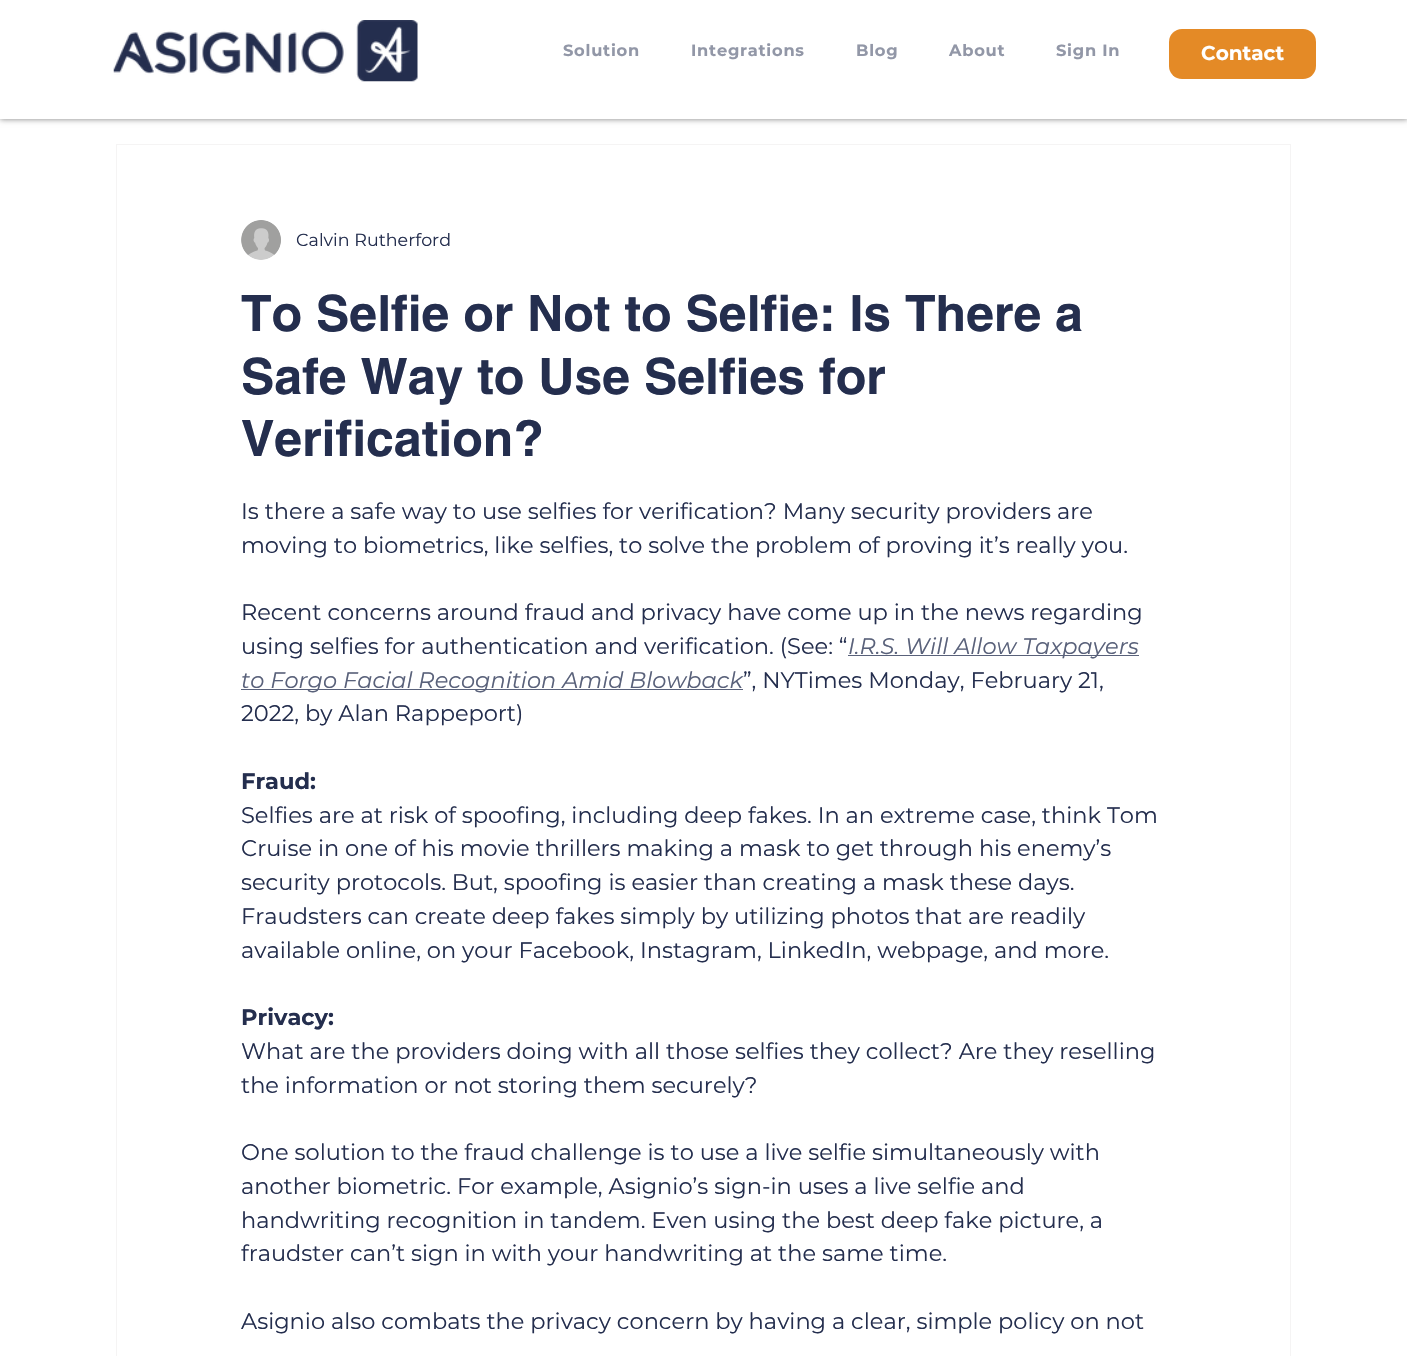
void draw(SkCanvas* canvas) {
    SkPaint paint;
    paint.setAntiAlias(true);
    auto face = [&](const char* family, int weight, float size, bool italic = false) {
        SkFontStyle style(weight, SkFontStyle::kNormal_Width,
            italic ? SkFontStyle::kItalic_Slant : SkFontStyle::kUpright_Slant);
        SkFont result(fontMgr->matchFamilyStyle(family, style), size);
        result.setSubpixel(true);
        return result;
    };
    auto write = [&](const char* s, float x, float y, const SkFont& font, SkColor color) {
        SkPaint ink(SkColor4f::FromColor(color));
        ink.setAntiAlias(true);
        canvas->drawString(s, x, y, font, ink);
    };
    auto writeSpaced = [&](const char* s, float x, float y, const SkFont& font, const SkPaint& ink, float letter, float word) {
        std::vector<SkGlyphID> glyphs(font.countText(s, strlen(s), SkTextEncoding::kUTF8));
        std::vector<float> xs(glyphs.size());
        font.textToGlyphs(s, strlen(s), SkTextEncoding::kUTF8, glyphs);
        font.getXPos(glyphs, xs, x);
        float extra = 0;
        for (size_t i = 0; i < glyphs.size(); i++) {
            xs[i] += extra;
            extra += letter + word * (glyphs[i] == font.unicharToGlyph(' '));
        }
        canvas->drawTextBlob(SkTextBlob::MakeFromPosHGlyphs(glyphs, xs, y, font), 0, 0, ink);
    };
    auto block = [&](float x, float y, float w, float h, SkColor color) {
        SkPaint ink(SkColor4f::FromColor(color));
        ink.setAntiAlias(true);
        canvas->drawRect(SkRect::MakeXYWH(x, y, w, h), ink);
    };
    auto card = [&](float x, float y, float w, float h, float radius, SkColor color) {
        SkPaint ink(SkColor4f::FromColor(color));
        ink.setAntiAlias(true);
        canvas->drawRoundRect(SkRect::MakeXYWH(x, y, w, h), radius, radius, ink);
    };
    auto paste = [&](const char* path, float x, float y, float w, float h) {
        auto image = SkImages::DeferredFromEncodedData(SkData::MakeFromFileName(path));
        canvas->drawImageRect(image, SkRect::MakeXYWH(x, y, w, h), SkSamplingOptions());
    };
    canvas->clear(SK_ColorWHITE);
    paint.setColor(SkColorSetARGB(128, 0, 0, 0));
    paint.setMaskFilter(SkMaskFilter::MakeBlur(kNormal_SkBlurStyle, 3));
    canvas->drawRect(SkRect::MakeXYWH(0, 0, 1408, 119), paint);
    paint.setMaskFilter(nullptr);
    block(0, 0, 1407, 119, SK_ColorWHITE);
    paste("pic1.png", 113, 20, 305, 62);
    auto kFont1 = face("Montserrat", 700, 16.25f);
    paint.setColor(SkColorSetRGB(146, 151, 167));
    writeSpaced("Solution", 563, 56, kFont1, paint, 0.75f, 0);
    writeSpaced("Integrations", 691, 56, kFont1, paint, 0.75f, 0);
    writeSpaced("Blog", 856, 56, kFont1, paint, 0.75f, 0);
    writeSpaced("About", 949, 56, kFont1, paint, 0.75f, 0);
    writeSpaced("Sign In", 1056, 56, kFont1, paint, 0.75f, 0);
    card(1169, 29, 147, 50, 13, SkColorSetRGB(228, 138, 38));
    auto kFont2 = face("Montserrat", 700, 20);
    write("Contact", 1201, 60, kFont2, SK_ColorWHITE);
    paint.setStyle(SkPaint::kStroke_Style);
    paint.setStrokeWidth(1);
    paint.setColor(SkColorSetRGB(245, 244, 244));
    canvas->drawRect(SkRect::MakeXYWH(116.5f, 144.5f, 1174, 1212), paint);
    paste("pic2.png", 241, 220, 40, 40);
    auto kFont3 = face("Montserrat", 400, 17.5f);
    write("Calvin Rutherford", 296, 246, kFont3, SkColorSetRGB(36, 46, 78));
    auto kFont4 = face("helvetica", 700, 50);
    write("To Selfie or Not to Selfie: Is There a", 241, 331, kFont4, SkColorSetRGB(36, 46, 78));
    write("Safe Way to Use Selfies for", 241, 394, kFont4, SkColorSetRGB(36, 46, 78));
    write("Verification?", 241, 456, kFont4, SkColorSetRGB(36, 46, 78));
    auto kFont5 = face("Montserrat", 400, 22.5f);
    write("Is there a safe way to use selfies for verification? Many security providers are", 241, 519, kFont5, SkColorSetRGB(36, 46, 78));
    write("moving to biometrics, like selfies, to solve the problem of proving it’s really you.", 241, 553, kFont5, SkColorSetRGB(36, 46, 78));
    write("Recent concerns around fraud and privacy have come up in the news regarding", 241, 620, kFont5, SkColorSetRGB(36, 46, 78));
    write("using selfies for authentication and verification. (See: “", 241, 654, kFont5, SkColorSetRGB(36, 46, 78));
    block(848, 655, 291, 1, SkColorSetRGB(89, 97, 122));
    auto kFont6 = face("Montserrat", 400, 22.5f, true);
    write("I.R.S. Will Allow Taxpayers", 848, 654, kFont6, SkColorSetRGB(89, 97, 122));
    block(241, 689, 502, 1, SkColorSetRGB(89, 97, 122));
    write("to Forgo Facial Recognition Amid Blowback", 241, 688, kFont6, SkColorSetRGB(89, 97, 122));
    write("”, NYTimes Monday, February 21,", 743, 688, kFont5, SkColorSetRGB(36, 46, 78));
    write("2022, by Alan Rappeport)", 241, 721, kFont5, SkColorSetRGB(36, 46, 78));
    auto kFont7 = face("Montserrat", 700, 22.5f);
    write("Fraud:", 241, 789, kFont7, SkColorSetRGB(36, 46, 78));
    write("Selfies are at risk of spoofing, including deep fakes. In an extreme case, think Tom", 241, 823, kFont5, SkColorSetRGB(36, 46, 78));
    write("Cruise in one of his movie thrillers making a mask to get through his enemy’s", 241, 856, kFont5, SkColorSetRGB(36, 46, 78));
    write("security protocols. But, spoofing is easier than creating a mask these days.", 241, 890, kFont5, SkColorSetRGB(36, 46, 78));
    write("Fraudsters can create deep fakes simply by utilizing photos that are readily", 241, 924, kFont5, SkColorSetRGB(36, 46, 78));
    write("available online, on your Facebook, Instagram, LinkedIn, webpage, and more.", 241, 958, kFont5, SkColorSetRGB(36, 46, 78));
    write("Privacy:", 241, 1025, kFont7, SkColorSetRGB(36, 46, 78));
    write("What are the providers doing with all those selfies they collect? Are they reselling", 241, 1059, kFont5, SkColorSetRGB(36, 46, 78));
    write("the information or not storing them securely?", 241, 1093, kFont5, SkColorSetRGB(36, 46, 78));
    write("One solution to the fraud challenge is to use a live selfie simultaneously with", 241, 1160, kFont5, SkColorSetRGB(36, 46, 78));
    write("another biometric. For example, Asignio’s sign-in uses a live selfie and", 241, 1194, kFont5, SkColorSetRGB(36, 46, 78));
    write("handwriting recognition in tandem. Even using the best deep fake picture, a", 241, 1228, kFont5, SkColorSetRGB(36, 46, 78));
    write("fraudster can’t sign in with your handwriting at the same time.", 241, 1261, kFont5, SkColorSetRGB(36, 46, 78));
    write("Asignio also combats the privacy concern by having a clear, simple policy on not", 241, 1329, kFont5, SkColorSetRGB(36, 46, 78));
}
